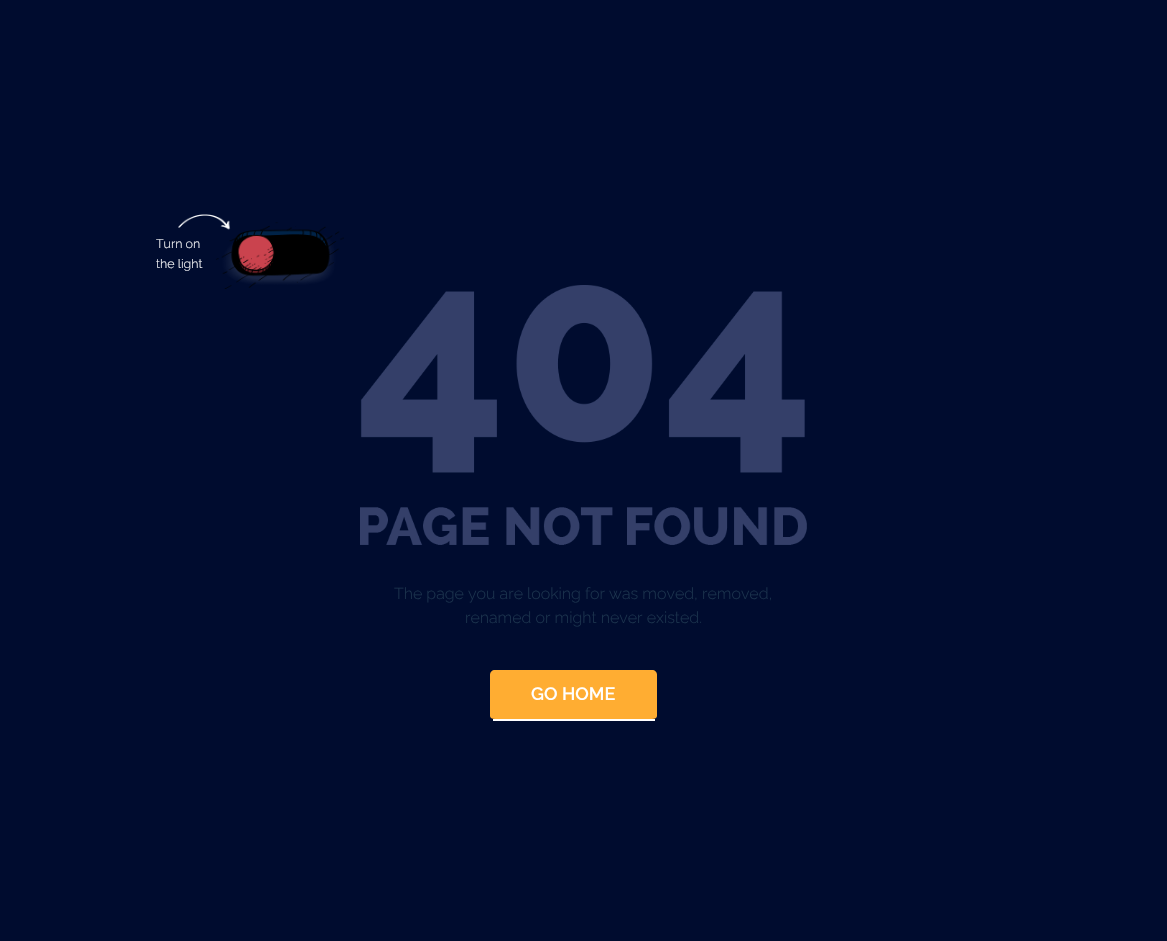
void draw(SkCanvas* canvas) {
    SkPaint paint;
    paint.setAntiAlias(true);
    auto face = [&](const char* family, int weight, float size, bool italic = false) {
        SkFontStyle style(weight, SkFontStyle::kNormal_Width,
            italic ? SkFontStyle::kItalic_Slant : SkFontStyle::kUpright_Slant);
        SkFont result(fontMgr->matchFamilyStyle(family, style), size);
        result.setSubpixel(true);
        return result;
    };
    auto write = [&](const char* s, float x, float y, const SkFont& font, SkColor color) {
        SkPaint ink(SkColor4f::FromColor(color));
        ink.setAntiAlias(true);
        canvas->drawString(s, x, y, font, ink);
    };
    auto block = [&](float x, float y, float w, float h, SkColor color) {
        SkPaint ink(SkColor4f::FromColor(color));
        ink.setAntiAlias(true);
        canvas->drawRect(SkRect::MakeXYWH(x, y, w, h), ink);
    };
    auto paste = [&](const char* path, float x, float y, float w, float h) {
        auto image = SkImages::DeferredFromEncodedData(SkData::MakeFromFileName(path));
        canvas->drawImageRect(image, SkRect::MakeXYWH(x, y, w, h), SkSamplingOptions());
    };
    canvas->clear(SkColorSetRGB(0, 12, 47));
    paste("pic1.png", 178, 214, 166, 75);
    auto kFont1 = face("Raleway", 300, 12.5f);
    write("Turn on", 156, 248, kFont1, SK_ColorWHITE);
    write("the light", 156, 268, kFont1, SK_ColorWHITE);
    paste("pic2.png", 238, 234, 37, 40);
    paste("pic3.png", 360, 285, 447, 260);
    auto kFont2 = face("Raleway", 300, 16);
    write("The page you are looking for was moved, removed,", 394, 599, kFont2, SkColorSetRGB(27, 51, 77));
    write("renamed or might never existed.", 465, 623, kFont2, SkColorSetRGB(27, 51, 77));
    paint.setColor(SkColorSetRGB(255, 173, 50));
    canvas->drawPath(SkPathBuilder().moveTo(495, 670).lineTo(652, 670).cubicTo(655, 670, 657, 672, 657, 675).lineTo(657, 716).cubicTo(657, 718, 655, 719, 652, 719).lineTo(495, 719).cubicTo(492, 719, 490, 718, 490, 716).lineTo(490, 675).cubicTo(490, 672, 492, 670, 495, 670).close().detach(), paint);
    block(493, 719, 162, 2, SK_ColorWHITE);
    auto kFont3 = face("Raleway", 600, 18);
    write("GO HOME", 531, 700, kFont3, SK_ColorWHITE);
}
